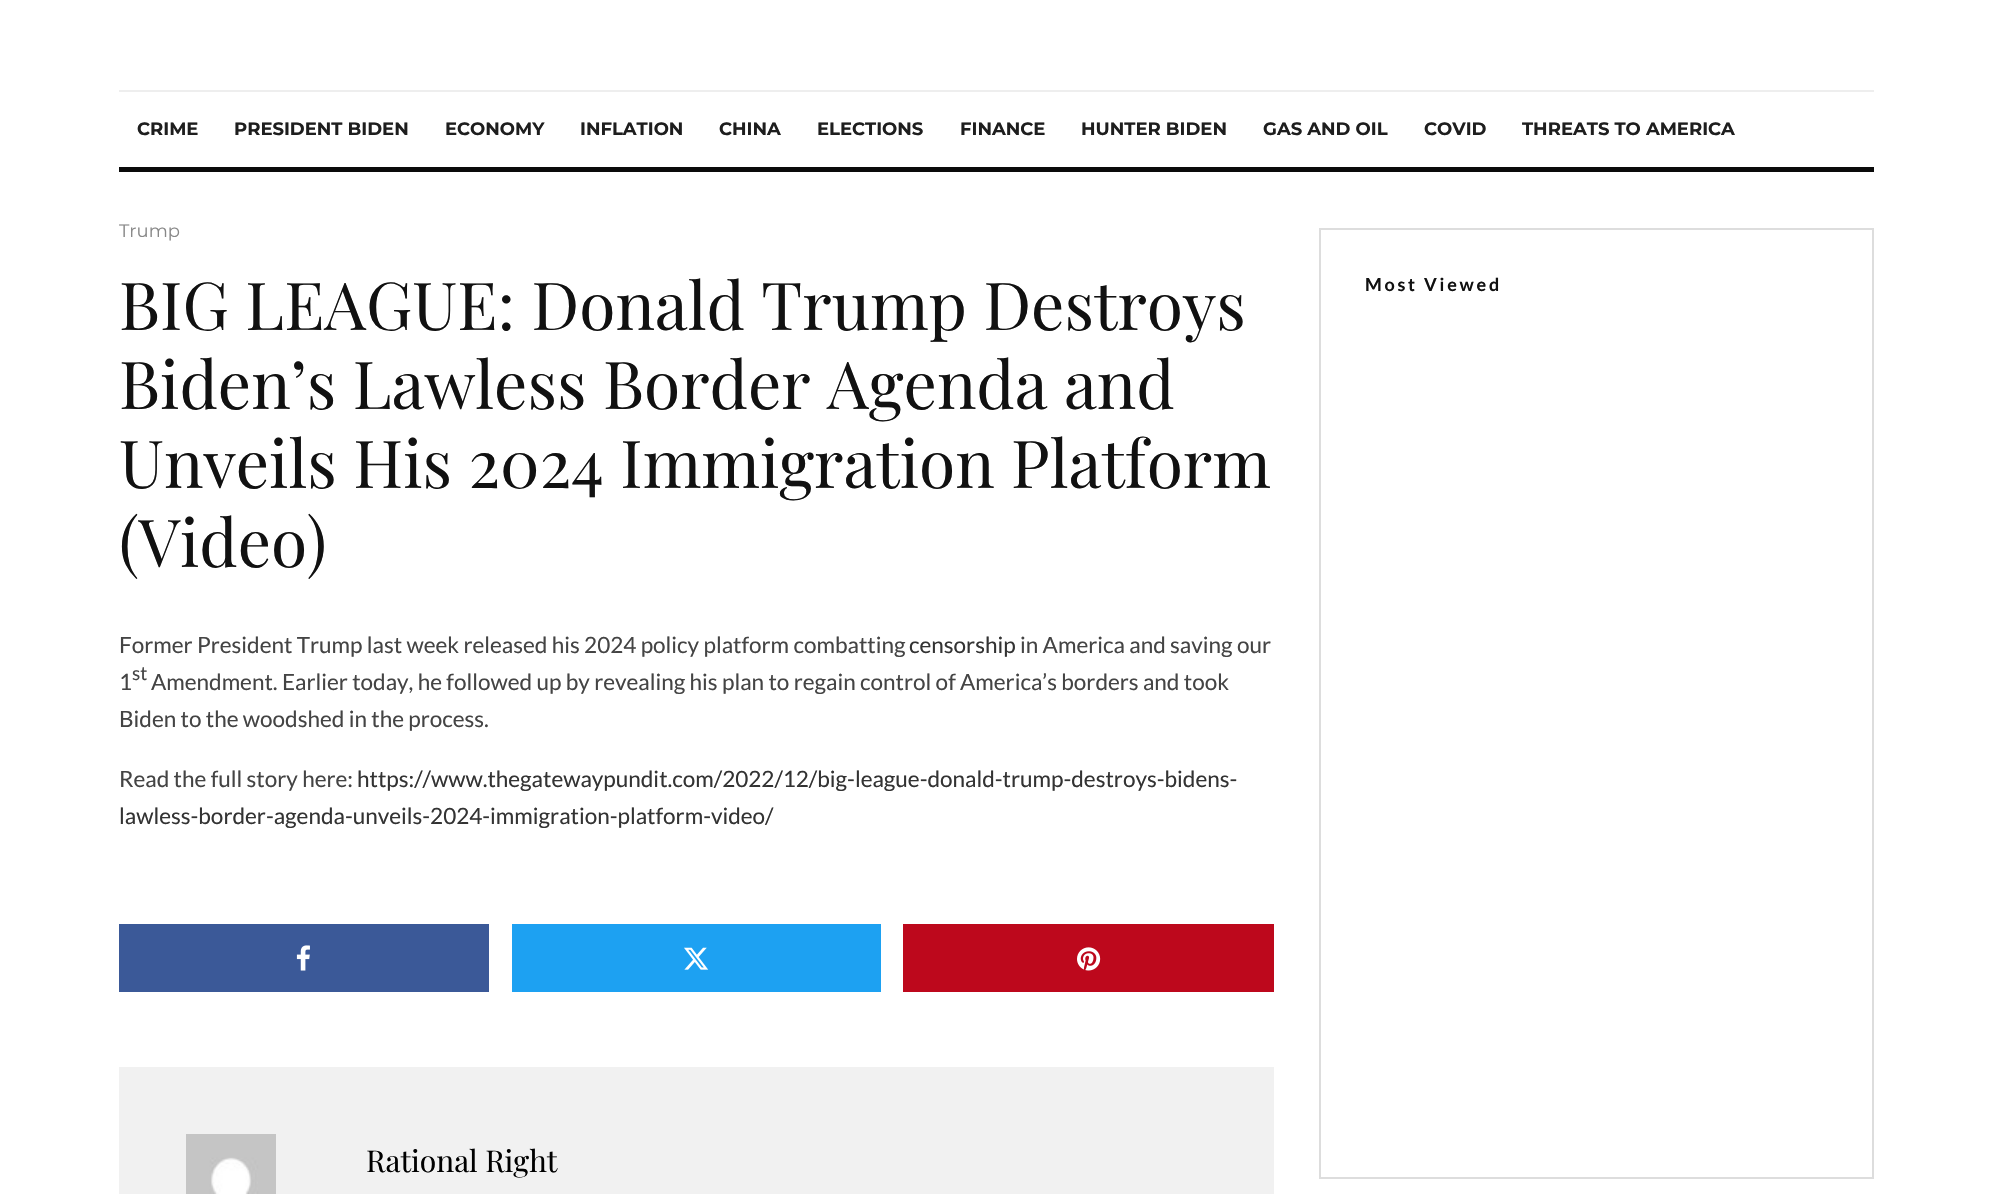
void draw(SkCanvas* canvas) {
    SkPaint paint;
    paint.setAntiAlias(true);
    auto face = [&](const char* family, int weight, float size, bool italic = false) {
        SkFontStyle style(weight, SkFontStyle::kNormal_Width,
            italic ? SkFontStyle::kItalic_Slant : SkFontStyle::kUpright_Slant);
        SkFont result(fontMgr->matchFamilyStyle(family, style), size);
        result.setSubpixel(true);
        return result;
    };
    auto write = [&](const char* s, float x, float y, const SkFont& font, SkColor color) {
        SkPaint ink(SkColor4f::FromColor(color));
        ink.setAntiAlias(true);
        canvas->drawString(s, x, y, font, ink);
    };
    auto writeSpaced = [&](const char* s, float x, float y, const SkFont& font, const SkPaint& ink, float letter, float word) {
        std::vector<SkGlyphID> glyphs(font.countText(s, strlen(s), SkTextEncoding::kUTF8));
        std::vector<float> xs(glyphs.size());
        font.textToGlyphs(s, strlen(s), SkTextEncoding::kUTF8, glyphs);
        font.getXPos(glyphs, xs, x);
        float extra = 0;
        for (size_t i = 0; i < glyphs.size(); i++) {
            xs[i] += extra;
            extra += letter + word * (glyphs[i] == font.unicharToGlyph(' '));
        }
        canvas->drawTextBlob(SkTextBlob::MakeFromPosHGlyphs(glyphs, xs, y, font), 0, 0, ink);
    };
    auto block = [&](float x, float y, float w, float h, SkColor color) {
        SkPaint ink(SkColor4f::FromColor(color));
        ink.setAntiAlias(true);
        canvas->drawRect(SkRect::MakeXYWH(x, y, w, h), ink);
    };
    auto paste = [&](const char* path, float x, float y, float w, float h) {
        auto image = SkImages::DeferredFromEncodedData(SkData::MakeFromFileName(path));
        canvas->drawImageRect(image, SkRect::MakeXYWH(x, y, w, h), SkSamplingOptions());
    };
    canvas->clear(SK_ColorWHITE);
    block(119, 90, 1755, 2, SkColorSetRGB(238, 238, 238));
    block(119, 167, 1755, 5, SkColorSetRGB(10, 10, 10));
    auto kFont1 = face("Montserrat", 700, 18);
    write("CRIME", 137, 135, kFont1, SkColorSetRGB(30, 30, 30));
    write("PRESIDENT BIDEN", 234, 135, kFont1, SkColorSetRGB(30, 30, 30));
    write("ECONOMY", 445, 135, kFont1, SkColorSetRGB(30, 30, 30));
    write("INFLATION", 580, 135, kFont1, SkColorSetRGB(30, 30, 30));
    write("CHINA", 719, 135, kFont1, SkColorSetRGB(30, 30, 30));
    write("ELECTIONS", 817, 135, kFont1, SkColorSetRGB(30, 30, 30));
    write("FINANCE", 960, 135, kFont1, SkColorSetRGB(30, 30, 30));
    write("HUNTER BIDEN", 1081, 135, kFont1, SkColorSetRGB(30, 30, 30));
    write("GAS AND OIL", 1263, 135, kFont1, SkColorSetRGB(30, 30, 30));
    write("COVID", 1424, 135, kFont1, SkColorSetRGB(30, 30, 30));
    write("THREATS TO AMERICA", 1522, 135, kFont1, SkColorSetRGB(30, 30, 30));
    auto kFont2 = face("Montserrat", 400, 18);
    write("Trump", 119, 237, kFont2, SkColorSetRGB(136, 136, 136));
    auto kFont3 = face("Playfair Display", 400, 66);
    write("BIG LEAGUE: Donald Trump Destroys", 119, 330, kFont3, SkColorSetRGB(17, 17, 17));
    write("Biden’s Lawless Border Agenda and", 119, 409, kFont3, SkColorSetRGB(17, 17, 17));
    write("Unveils His 2024 Immigration Platform", 119, 488, kFont3, SkColorSetRGB(17, 17, 17));
    write("(Video)", 119, 567, kFont3, SkColorSetRGB(17, 17, 17));
    auto kFont4 = face("Lato", 400, 22.5f);
    write("Former President Trump last week released his 2024 policy platform combatting", 119, 653, kFont4, SkColorSetRGB(68, 68, 68));
    write("censorship", 909, 653, kFont4, SkColorSetRGB(51, 51, 51));
    write("in America and saving our", 1020, 653, kFont4, SkColorSetRGB(68, 68, 68));
    write("1", 119, 690, kFont4, SkColorSetRGB(68, 68, 68));
    auto kFont5 = face("Lato", 400, 19);
    write("st", 132, 680, kFont5, SkColorSetRGB(68, 68, 68));
    write("Amendment. Earlier today, he followed up by revealing his plan to regain control of America’s borders and took", 151, 690, kFont4, SkColorSetRGB(68, 68, 68));
    write("Biden to the woodshed in the process.", 119, 727, kFont4, SkColorSetRGB(68, 68, 68));
    write("Read the full story here:", 119, 787, kFont4, SkColorSetRGB(68, 68, 68));
    write("https://www.thegatewaypundit.com/2022/12/big-league-donald-trump-destroys-bidens-", 357, 787, kFont4, SkColorSetRGB(51, 51, 51));
    write("lawless-border-agenda-unveils-2024-immigration-platform-video/", 119, 824, kFont4, SkColorSetRGB(51, 51, 51));
    block(119, 924, 370, 68, SkColorSetRGB(59, 89, 152));
    paste("pic1.png", 296, 945, 14, 26);
    block(512, 924, 369, 68, SkColorSetRGB(29, 161, 242));
    paste("pic2.png", 684, 947, 25, 23);
    block(903, 924, 371, 68, SkColorSetRGB(189, 8, 28));
    paste("pic3.png", 1077, 947, 24, 24);
    block(119, 1067, 1155, 127, SkColorSetRGB(241, 241, 241));
    paste("pic4.png", 186, 1134, 90, 60);
    auto kFont6 = face("Playfair Display", 400, 30);
    write("Rational Right", 366, 1172, kFont6, SK_ColorBLACK);
    paint.setStyle(SkPaint::kStroke_Style);
    paint.setStrokeWidth(2);
    paint.setColor(SkColorSetRGB(221, 221, 221));
    canvas->drawRect(SkRect::MakeXYWH(1320, 229, 553, 949), paint);
    auto kFont7 = face("Lato", 700, 18);
    paint.setStyle(SkPaint::kFill_Style);
    paint.setColor(SkColorSetRGB(17, 17, 17));
    writeSpaced("Most Viewed", 1365, 291, kFont7, paint, 2.75f, 0);
}
